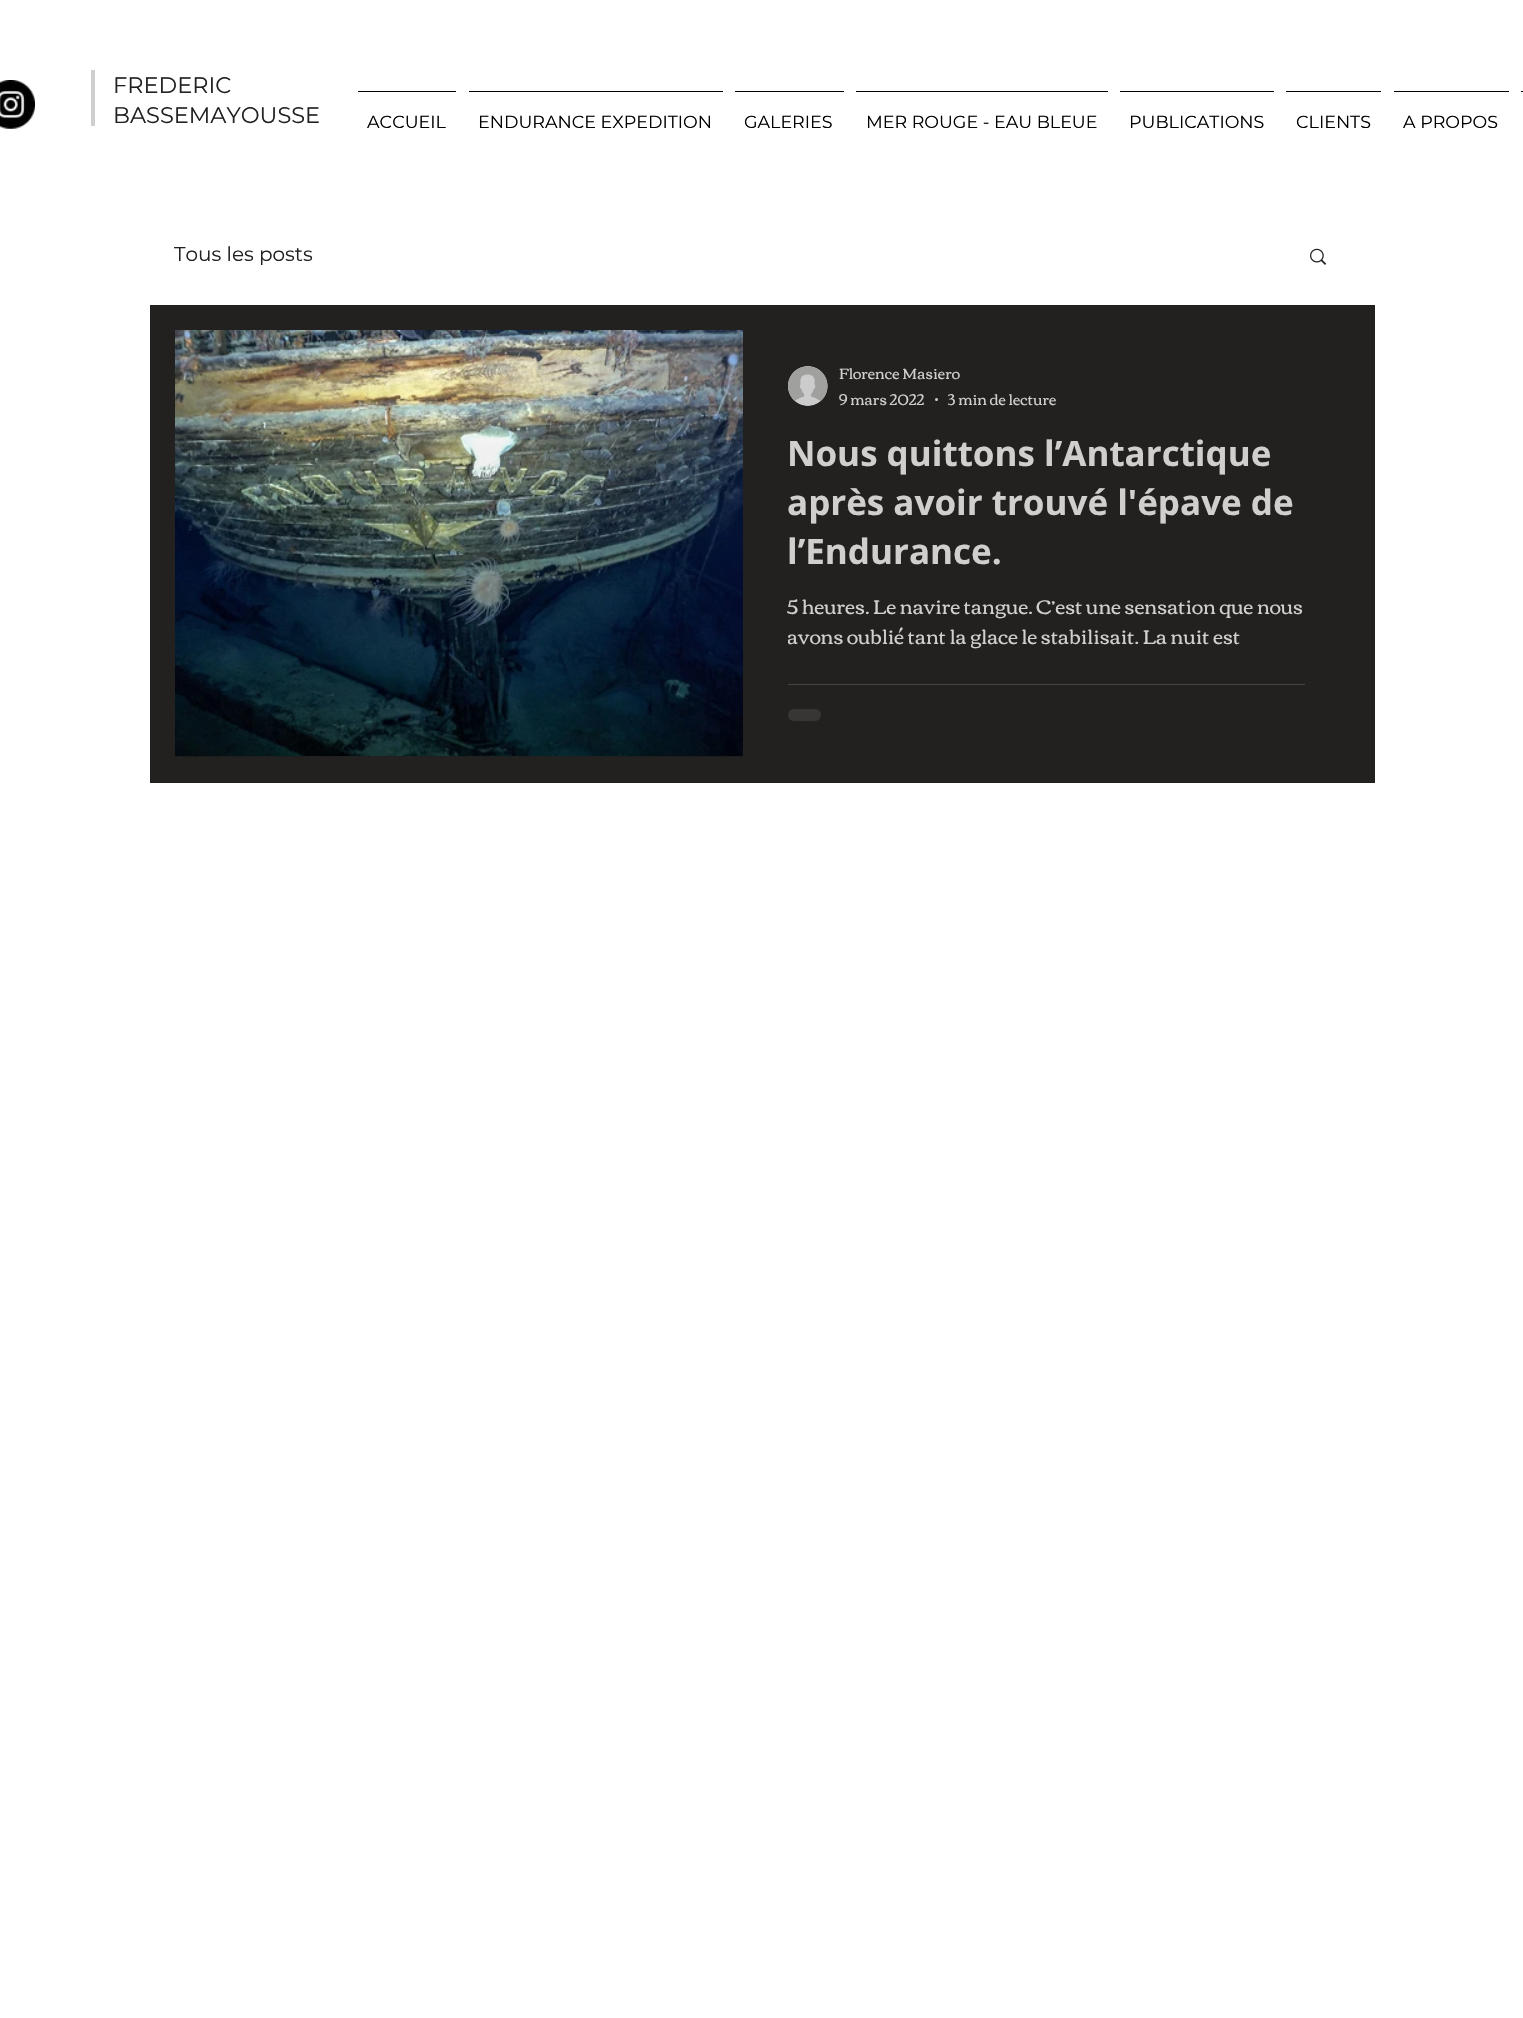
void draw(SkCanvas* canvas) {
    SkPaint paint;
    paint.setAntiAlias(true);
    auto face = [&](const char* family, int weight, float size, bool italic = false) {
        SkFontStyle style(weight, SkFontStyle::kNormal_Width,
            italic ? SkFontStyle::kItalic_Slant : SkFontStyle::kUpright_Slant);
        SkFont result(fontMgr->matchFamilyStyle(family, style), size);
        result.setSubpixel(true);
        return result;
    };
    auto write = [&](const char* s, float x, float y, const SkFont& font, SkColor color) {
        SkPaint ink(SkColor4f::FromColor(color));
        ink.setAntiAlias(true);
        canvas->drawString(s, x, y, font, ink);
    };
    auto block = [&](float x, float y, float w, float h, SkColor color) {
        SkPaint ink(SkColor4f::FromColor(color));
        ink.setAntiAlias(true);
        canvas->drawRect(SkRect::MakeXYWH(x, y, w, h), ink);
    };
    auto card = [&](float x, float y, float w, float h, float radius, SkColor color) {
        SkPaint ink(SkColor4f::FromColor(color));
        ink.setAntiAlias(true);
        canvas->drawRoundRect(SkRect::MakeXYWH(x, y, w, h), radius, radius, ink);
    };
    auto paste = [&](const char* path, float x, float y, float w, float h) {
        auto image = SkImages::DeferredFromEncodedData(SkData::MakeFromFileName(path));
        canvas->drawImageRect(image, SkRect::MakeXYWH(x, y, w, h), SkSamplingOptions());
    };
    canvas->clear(SK_ColorWHITE);
    paste("pic1.png", 0, 80, 35, 49);
    block(91, 70, 4, 56, SkColorSetRGB(208, 207, 205));
    auto kFont1 = face("Montserrat", 400, 22.5f);
    write("FREDERIC", 113, 93, kFont1, SkColorSetRGB(34, 33, 32));
    write("BASSEMAYOUSSE", 113, 123, kFont1, SkColorSetRGB(34, 33, 32));
    block(1521, 91, 2, 1, SK_ColorBLACK);
    block(358, 91, 98, 1, SK_ColorBLACK);
    auto kFont2 = face("Montserrat", 400, 17.5f);
    write("ACCUEIL", 367, 128, kFont2, SK_ColorBLACK);
    block(469, 91, 254, 1, SK_ColorBLACK);
    write("ENDURANCE EXPEDITION", 478, 128, kFont2, SK_ColorBLACK);
    block(735, 91, 109, 1, SK_ColorBLACK);
    write("GALERIES", 744, 128, kFont2, SK_ColorBLACK);
    block(856, 91, 252, 1, SK_ColorBLACK);
    write("MER ROUGE - EAU BLEUE", 866, 128, kFont2, SK_ColorBLACK);
    block(1120, 91, 154, 1, SK_ColorBLACK);
    write("PUBLICATIONS", 1129, 128, kFont2, SK_ColorBLACK);
    block(1286, 91, 95, 1, SK_ColorBLACK);
    write("CLIENTS", 1296, 128, kFont2, SK_ColorBLACK);
    block(1394, 91, 115, 1, SK_ColorBLACK);
    write("A PROPOS", 1403, 128, kFont2, SK_ColorBLACK);
    block(150, 305, 1225, 478, SkColorSetRGB(34, 33, 32));
    auto kFont3 = face("Montserrat", 400, 20);
    write("Tous les posts", 174, 261, kFont3, SkColorSetRGB(34, 33, 32));
    paste("pic2.png", 1310, 248, 17, 17);
    paste("pic3.png", 175, 330, 568, 426);
    paste("pic4.png", 175, 756, 568, 1);
    paste("pic5.png", 788, 366, 40, 40);
    auto kFont4 = face("Corben", 400, 15);
    write("Florence Masiero", 839, 379, kFont4, SkColorSetRGB(208, 207, 205));
    write("9 mars 2022", 839, 405, kFont4, SkColorSetRGB(208, 207, 205));
    paint.setColor(SkColorSetRGB(208, 207, 205));
    canvas->drawCircle(936.5f, 399.5f, 1.5f, paint);
    canvas->save();
    canvas->clipRect(SkRect::MakeXYWH(948, 384, 108, 29));
    write("3 min de lecture", 947, 405, kFont4, SkColorSetRGB(208, 207, 205));
    canvas->restore();
    auto kFont5 = face("Open Sans", 700, 35);
    write("Nous quittons l’Antarctique", 787, 466, kFont5, SkColorSetRGB(208, 207, 205));
    write("après avoir trouvé l'épave de", 787, 515, kFont5, SkColorSetRGB(208, 207, 205));
    write("l’Endurance.", 787, 564, kFont5, SkColorSetRGB(208, 207, 205));
    auto kFont6 = face("Corben", 400, 20);
    write("5 heures. Le navire tangue. C’est une sensation que nous", 787, 614, kFont6, SkColorSetRGB(208, 207, 205));
    canvas->save();
    canvas->clipRect(SkRect::MakeXYWH(788, 590, 517, 79));
    write("avons oublié tant la glace le stabilisait. La nuit est", 787, 644, kFont6, SkColorSetRGB(208, 207, 205));
    canvas->restore();
    block(788, 684, 517, 1, SkColorSetRGB(69, 68, 67));
    card(788, 709, 33, 12, 6, SkColorSetRGB(55, 54, 53));
}
